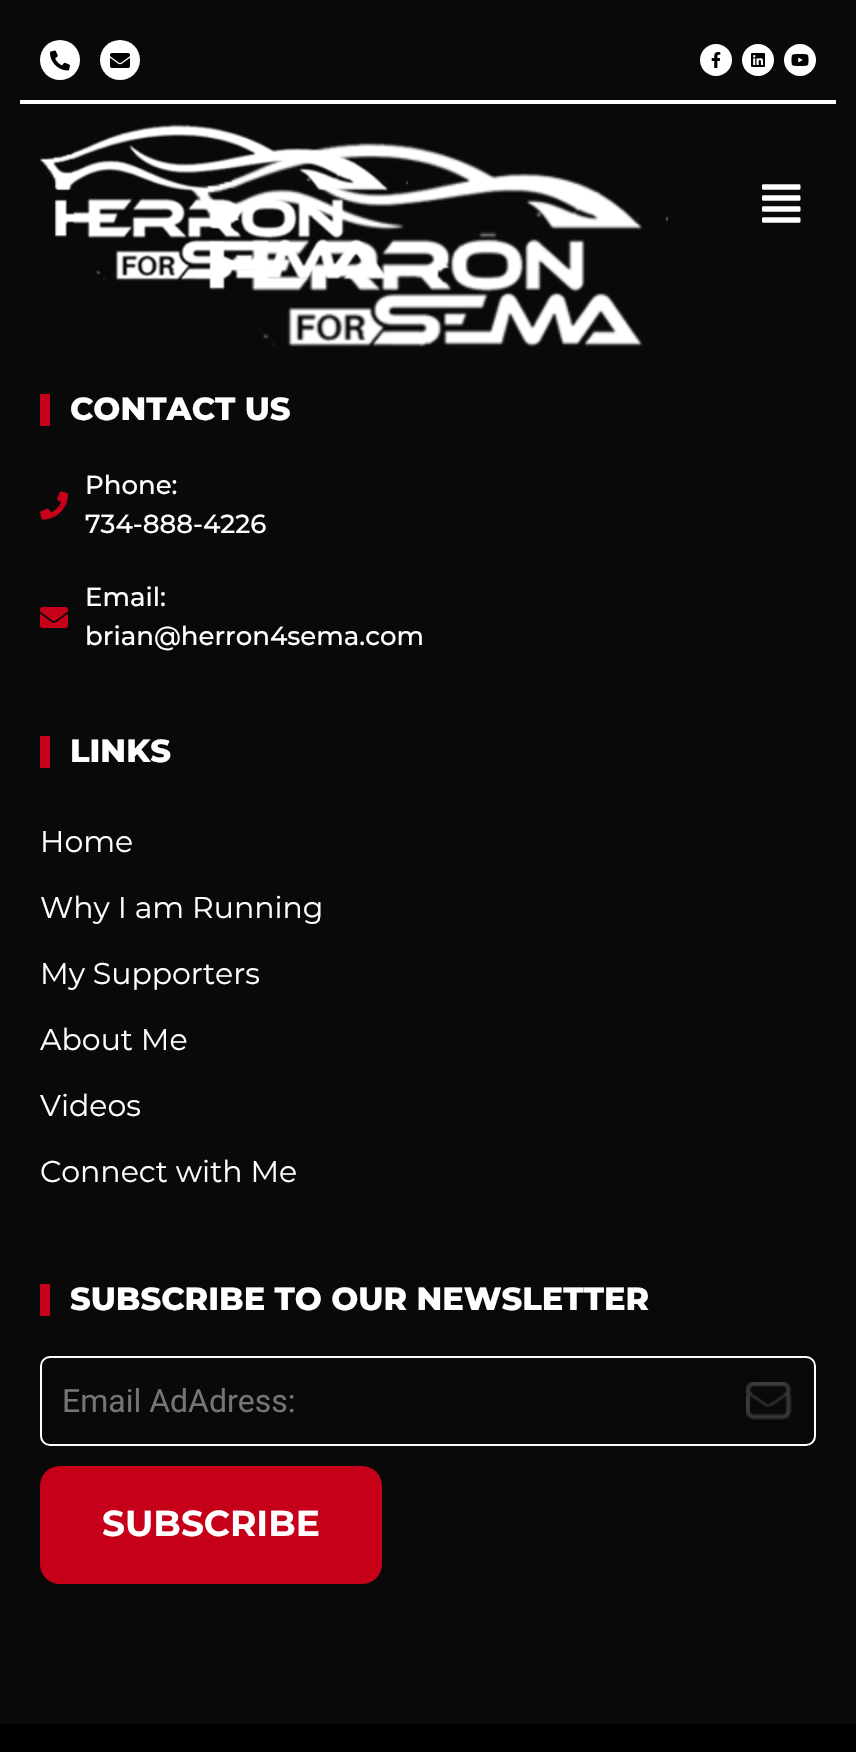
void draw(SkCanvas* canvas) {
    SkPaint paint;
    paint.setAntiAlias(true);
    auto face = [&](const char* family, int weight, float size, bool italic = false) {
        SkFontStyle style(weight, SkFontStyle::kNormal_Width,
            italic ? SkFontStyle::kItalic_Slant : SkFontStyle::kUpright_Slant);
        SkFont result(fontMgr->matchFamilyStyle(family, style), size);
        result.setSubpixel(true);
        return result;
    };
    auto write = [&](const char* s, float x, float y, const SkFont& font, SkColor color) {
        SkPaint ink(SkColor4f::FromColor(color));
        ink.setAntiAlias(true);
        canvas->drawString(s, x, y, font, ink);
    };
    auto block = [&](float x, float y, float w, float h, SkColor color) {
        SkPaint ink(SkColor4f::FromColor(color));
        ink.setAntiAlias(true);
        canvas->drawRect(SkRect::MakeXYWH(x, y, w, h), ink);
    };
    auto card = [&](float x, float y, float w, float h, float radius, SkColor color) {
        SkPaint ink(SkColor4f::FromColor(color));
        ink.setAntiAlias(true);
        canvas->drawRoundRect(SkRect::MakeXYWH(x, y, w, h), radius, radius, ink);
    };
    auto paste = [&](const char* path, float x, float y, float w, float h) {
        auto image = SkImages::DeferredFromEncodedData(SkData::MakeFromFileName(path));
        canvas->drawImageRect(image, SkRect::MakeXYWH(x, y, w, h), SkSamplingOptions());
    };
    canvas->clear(SkColorSetRGB(9, 9, 9));
    block(20, 100, 816, 4, SK_ColorWHITE);
    paint.setColor(SK_ColorWHITE);
    canvas->drawCircle(60, 60, 20, paint);
    paste("pic1.png", 50, 50, 20, 21);
    canvas->drawCircle(120, 60, 20, paint);
    paste("pic2.png", 110, 53, 20, 15);
    canvas->drawCircle(716, 60, 16, paint);
    paste("pic3.png", 711, 52, 10, 16);
    canvas->drawCircle(758, 60, 16, paint);
    paste("pic4.png", 751, 53, 14, 14);
    canvas->drawCircle(800, 60, 16, paint);
    paste("pic5.png", 791, 54, 18, 12);
    paste("pic8.png", 190, 142, 478, 205);
    paste("pic6.png", 40, 124, 368, 157);
    paste("pic7.png", 762, 184, 39, 39);
    block(40, 394, 10, 32, SkColorSetRGB(199, 0, 26));
    auto kFont1 = face("Montserrat", 800, 32);
    write("CONTACT US", 70, 420, kFont1, SK_ColorWHITE);
    paste("pic9.png", 40, 491, 29, 29);
    auto kFont2 = face("Montserrat", 500, 26);
    write("Phone:", 85, 494, kFont2, SK_ColorWHITE);
    write("734-888-4226", 85, 533, kFont2, SK_ColorWHITE);
    paste("pic10.png", 40, 607, 28, 21);
    write("Email:", 85, 606, kFont2, SK_ColorWHITE);
    write("brian@herron4sema.com", 85, 645, kFont2, SK_ColorWHITE);
    block(40, 736, 10, 32, SkColorSetRGB(199, 0, 26));
    write("LINKS", 70, 762, kFont1, SK_ColorWHITE);
    auto kFont3 = face("Montserrat", 400, 30);
    write("Home", 40, 852, kFont3, SK_ColorWHITE);
    write("Why I am Running", 40, 918, kFont3, SK_ColorWHITE);
    write("My Supporters", 40, 984, kFont3, SK_ColorWHITE);
    write("About Me", 40, 1050, kFont3, SK_ColorWHITE);
    write("Videos", 40, 1116, kFont3, SK_ColorWHITE);
    write("Connect with Me", 40, 1182, kFont3, SK_ColorWHITE);
    block(40, 1284, 10, 32, SkColorSetRGB(199, 0, 26));
    write("SUBSCRIBE TO OUR NEWSLETTER", 70, 1310, kFont1, SK_ColorWHITE);
    paste("pic11.png", 746, 1382, 46, 38);
    paint.setStyle(SkPaint::kStroke_Style);
    paint.setStrokeWidth(2);
    canvas->drawRoundRect(SkRect::MakeXYWH(41, 1357, 774, 88), 9, 9, paint);
    auto kFont4 = face("Roboto", 400, 32);
    write("Email AdAdress:", 62, 1412, kFont4, SkColorSetRGB(117, 117, 117));
    card(40, 1466, 342, 118, 20, SkColorSetRGB(199, 0, 26));
    auto kFont5 = face("Montserrat", 700, 36);
    write("SUBSCRIBE", 102, 1536, kFont5, SK_ColorWHITE);
    block(0, 1724, 856, 28, SK_ColorBLACK);
}
